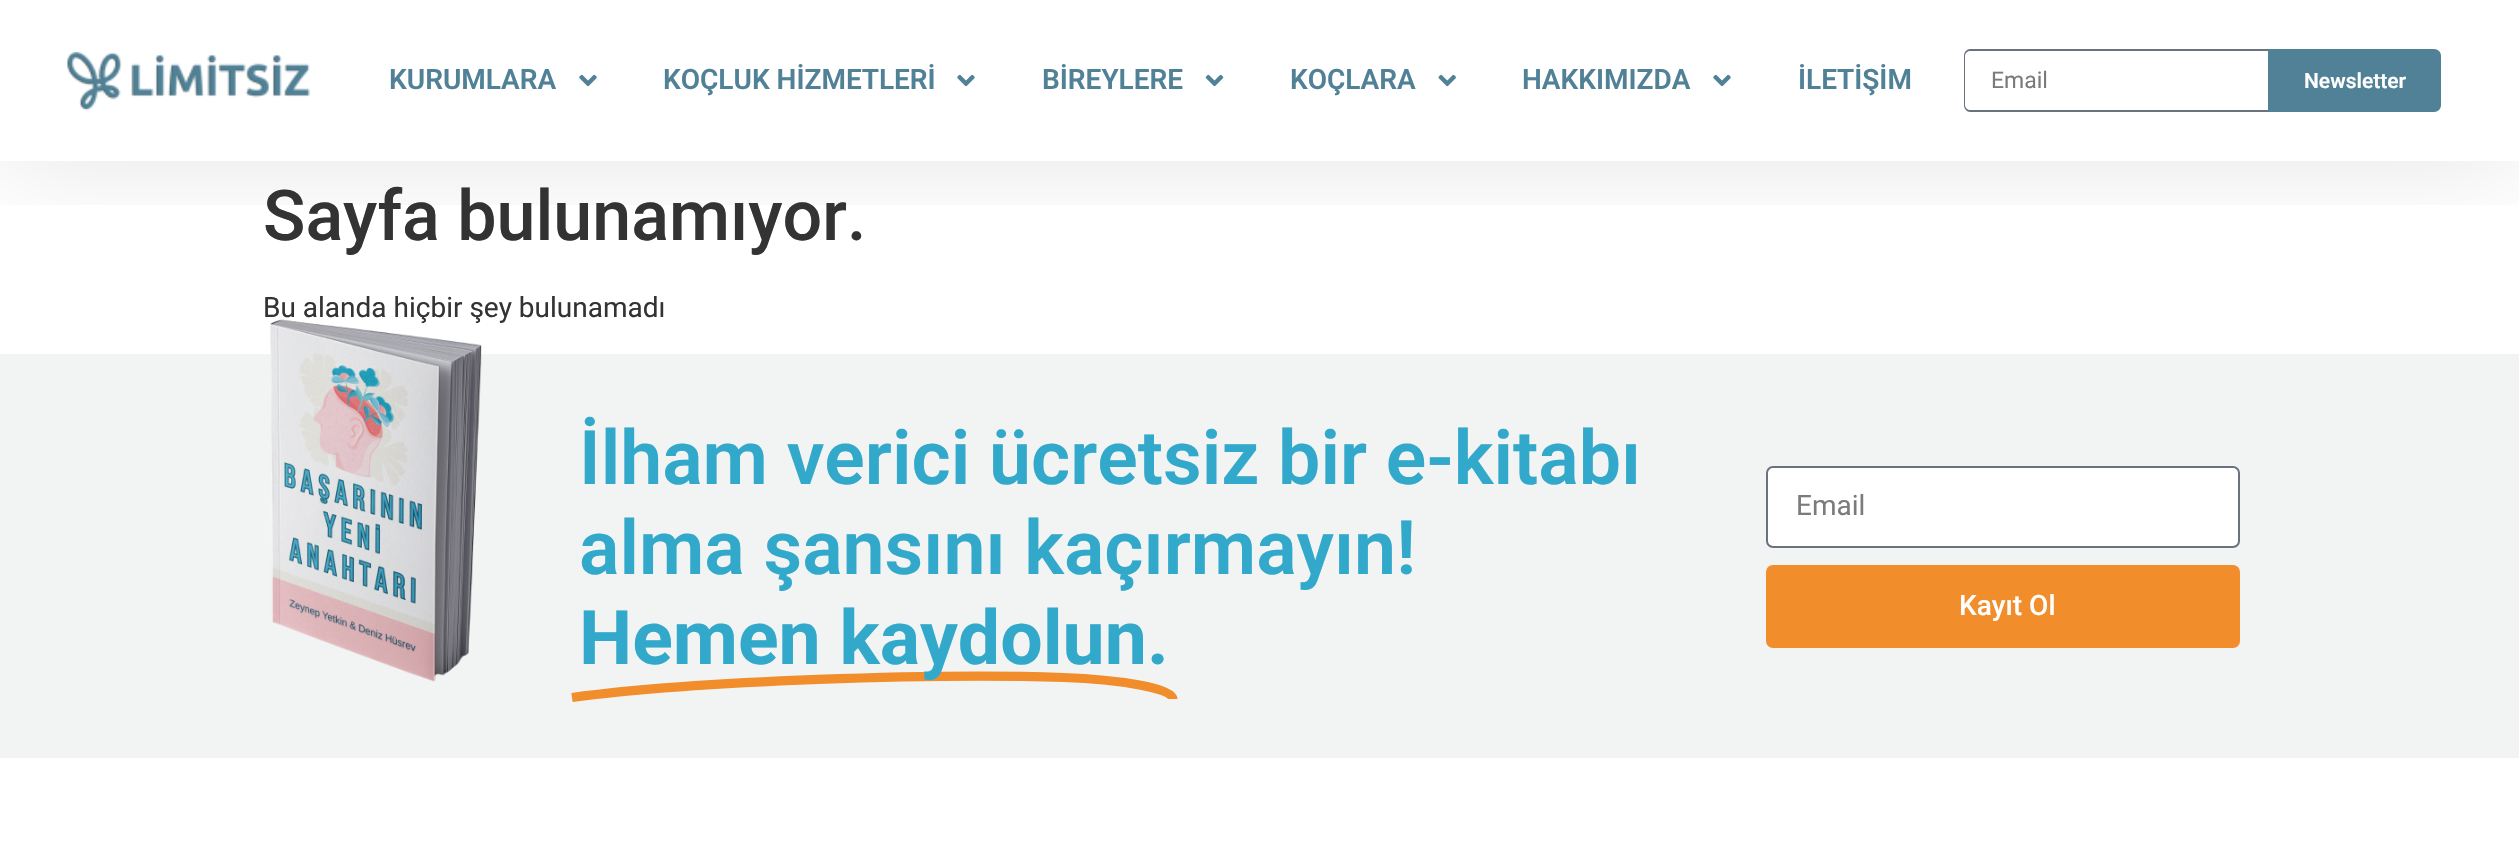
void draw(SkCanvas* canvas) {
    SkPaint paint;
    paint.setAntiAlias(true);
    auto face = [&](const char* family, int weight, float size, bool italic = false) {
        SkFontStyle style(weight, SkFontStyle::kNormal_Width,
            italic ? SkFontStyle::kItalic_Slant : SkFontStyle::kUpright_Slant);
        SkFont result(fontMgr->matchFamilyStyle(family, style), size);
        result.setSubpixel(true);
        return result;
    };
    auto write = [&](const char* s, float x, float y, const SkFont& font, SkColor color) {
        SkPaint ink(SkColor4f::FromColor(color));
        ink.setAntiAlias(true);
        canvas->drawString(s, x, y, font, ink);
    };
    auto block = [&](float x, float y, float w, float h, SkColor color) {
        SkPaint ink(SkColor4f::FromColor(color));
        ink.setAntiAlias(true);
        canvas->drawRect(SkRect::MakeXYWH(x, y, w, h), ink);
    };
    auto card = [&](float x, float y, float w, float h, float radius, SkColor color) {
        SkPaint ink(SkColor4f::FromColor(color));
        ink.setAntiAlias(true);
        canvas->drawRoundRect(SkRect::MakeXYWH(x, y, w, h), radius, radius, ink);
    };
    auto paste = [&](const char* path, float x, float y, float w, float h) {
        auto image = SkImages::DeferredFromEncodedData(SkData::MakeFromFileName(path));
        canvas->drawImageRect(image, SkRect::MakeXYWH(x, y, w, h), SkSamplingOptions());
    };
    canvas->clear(SK_ColorWHITE);
    auto kFont1 = face("Roboto", 400, 28);
    write("Bu alanda hiçbir şey bulunamadı", 263, 317, kFont1, SkColorSetRGB(51, 51, 51));
    block(0, 354, 2519, 404, SkColorSetRGB(242, 243, 243));
    paste("pic5.png", 270, 319, 212, 363);
    canvas->save();
    canvas->clipRect(SkRect::MakeXYWH(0, 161, 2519, 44));
    paint.setColor(SkColorSetARGB(26, 0, 0, 0));
    paint.setMaskFilter(SkMaskFilter::MakeBlur(kNormal_SkBlurStyle, 52.5f));
    canvas->drawRect(SkRect::MakeXYWH(0, 0, 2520, 161), paint);
    paint.setMaskFilter(nullptr);
    canvas->restore();
    paste("pic1.png", 66, 51, 245, 60);
    auto kFont2 = face("Roboto", 600, 28);
    write("KURUMLARA", 389, 89, kFont2, SkColorSetRGB(81, 129, 151));
    paste("pic2.png", 579, 74, 18, 13);
    write("KOÇLUK HİZMETLERİ", 663, 89, kFont2, SkColorSetRGB(81, 129, 151));
    paste("pic2.png", 957, 74, 18, 13);
    write("BİREYLERE", 1042, 89, kFont2, SkColorSetRGB(81, 129, 151));
    paste("pic3.png", 1205, 74, 19, 13);
    write("KOÇLARA", 1290, 89, kFont2, SkColorSetRGB(81, 129, 151));
    paste("pic4.png", 1438, 74, 18, 13);
    write("HAKKIMIZDA", 1522, 89, kFont2, SkColorSetRGB(81, 129, 151));
    paste("pic2.png", 1713, 74, 18, 13);
    write("İLETİŞİM", 1798, 89, kFont2, SkColorSetRGB(81, 129, 151));
    paint.setColor(SkColorSetRGB(105, 114, 125));
    canvas->drawPath(SkPathBuilder(SkPathFillType::kEvenOdd).moveTo(1970, 49).lineTo(2268, 49).lineTo(2268, 112).lineTo(1970, 112).cubicTo(1967, 112, 1964, 109, 1964, 105).lineTo(1964, 56).cubicTo(1964, 52, 1967, 49, 1970, 49).close().moveTo(1970, 51).lineTo(2268, 51).lineTo(2268, 110).lineTo(1970, 110).cubicTo(1968, 110, 1965, 108, 1965, 105).lineTo(1965, 56).cubicTo(1965, 53, 1968, 51, 1970, 51).close().detach(), paint);
    auto kFont3 = face("Roboto", 400, 23);
    write("Email", 1991, 88, kFont3, SkColorSetRGB(123, 123, 123));
    paint.setColor(SkColorSetRGB(81, 129, 151));
    canvas->drawPath(SkPathBuilder().moveTo(2268, 49).lineTo(2434, 49).cubicTo(2438, 49, 2441, 52, 2441, 56).lineTo(2441, 105).cubicTo(2441, 109, 2438, 112, 2434, 112).lineTo(2268, 112).close().detach(), paint);
    auto kFont4 = face("Roboto", 600, 21);
    write("Newsletter", 2304, 88, kFont4, SK_ColorWHITE);
    auto kFont5 = face("Roboto", 500, 70);
    write("Sayfa bulunamıyor.", 263, 240, kFont5, SkColorSetRGB(51, 51, 51));
    auto kFont6 = face("Roboto", 600, 75.25f);
    write("İlham verici ücretsiz bir e-kitabı", 579, 484, kFont6, SkColorSetRGB(50, 169, 203));
    write("alma şansını kaçırmayın!", 579, 574, kFont6, SkColorSetRGB(50, 169, 203));
    paint.setStyle(SkPaint::kStroke_Style);
    paint.setStrokeWidth(9.2f);
    paint.setColor(SkColorSetRGB(241, 141, 43));
    canvas->drawPath(SkPathBuilder().moveTo(572, 697.5f).cubicTo(699, 680.5f, 937.5f, 673, 1063.5f, 677.5f).cubicTo(1116.5f, 679.5f, 1173, 687.5f, 1173, 699).detach(), paint);
    auto kFont7 = face("Roboto", 700, 75.25f);
    write("Hemen kaydolun.", 579, 664, kFont7, SkColorSetRGB(50, 169, 203));
    paint.setStyle(SkPaint::kFill_Style);
    paint.setColor(SK_ColorWHITE);
    canvas->drawRoundRect(SkRect::MakeXYWH(1767, 467, 472, 80), 6, 6, paint);
    paint.setStyle(SkPaint::kStroke_Style);
    paint.setStrokeWidth(2);
    paint.setColor(SkColorSetRGB(105, 114, 125));
    canvas->drawRoundRect(SkRect::MakeXYWH(1767, 467, 472, 80), 6, 6, paint);
    write("Email", 1796, 515, kFont1, SkColorSetRGB(123, 123, 123));
    card(1766, 565, 474, 83, 7, SkColorSetRGB(241, 141, 43));
    auto kFont8 = face("Roboto", 500, 28);
    write("Kayıt Ol", 1959, 615, kFont8, SK_ColorWHITE);
}
